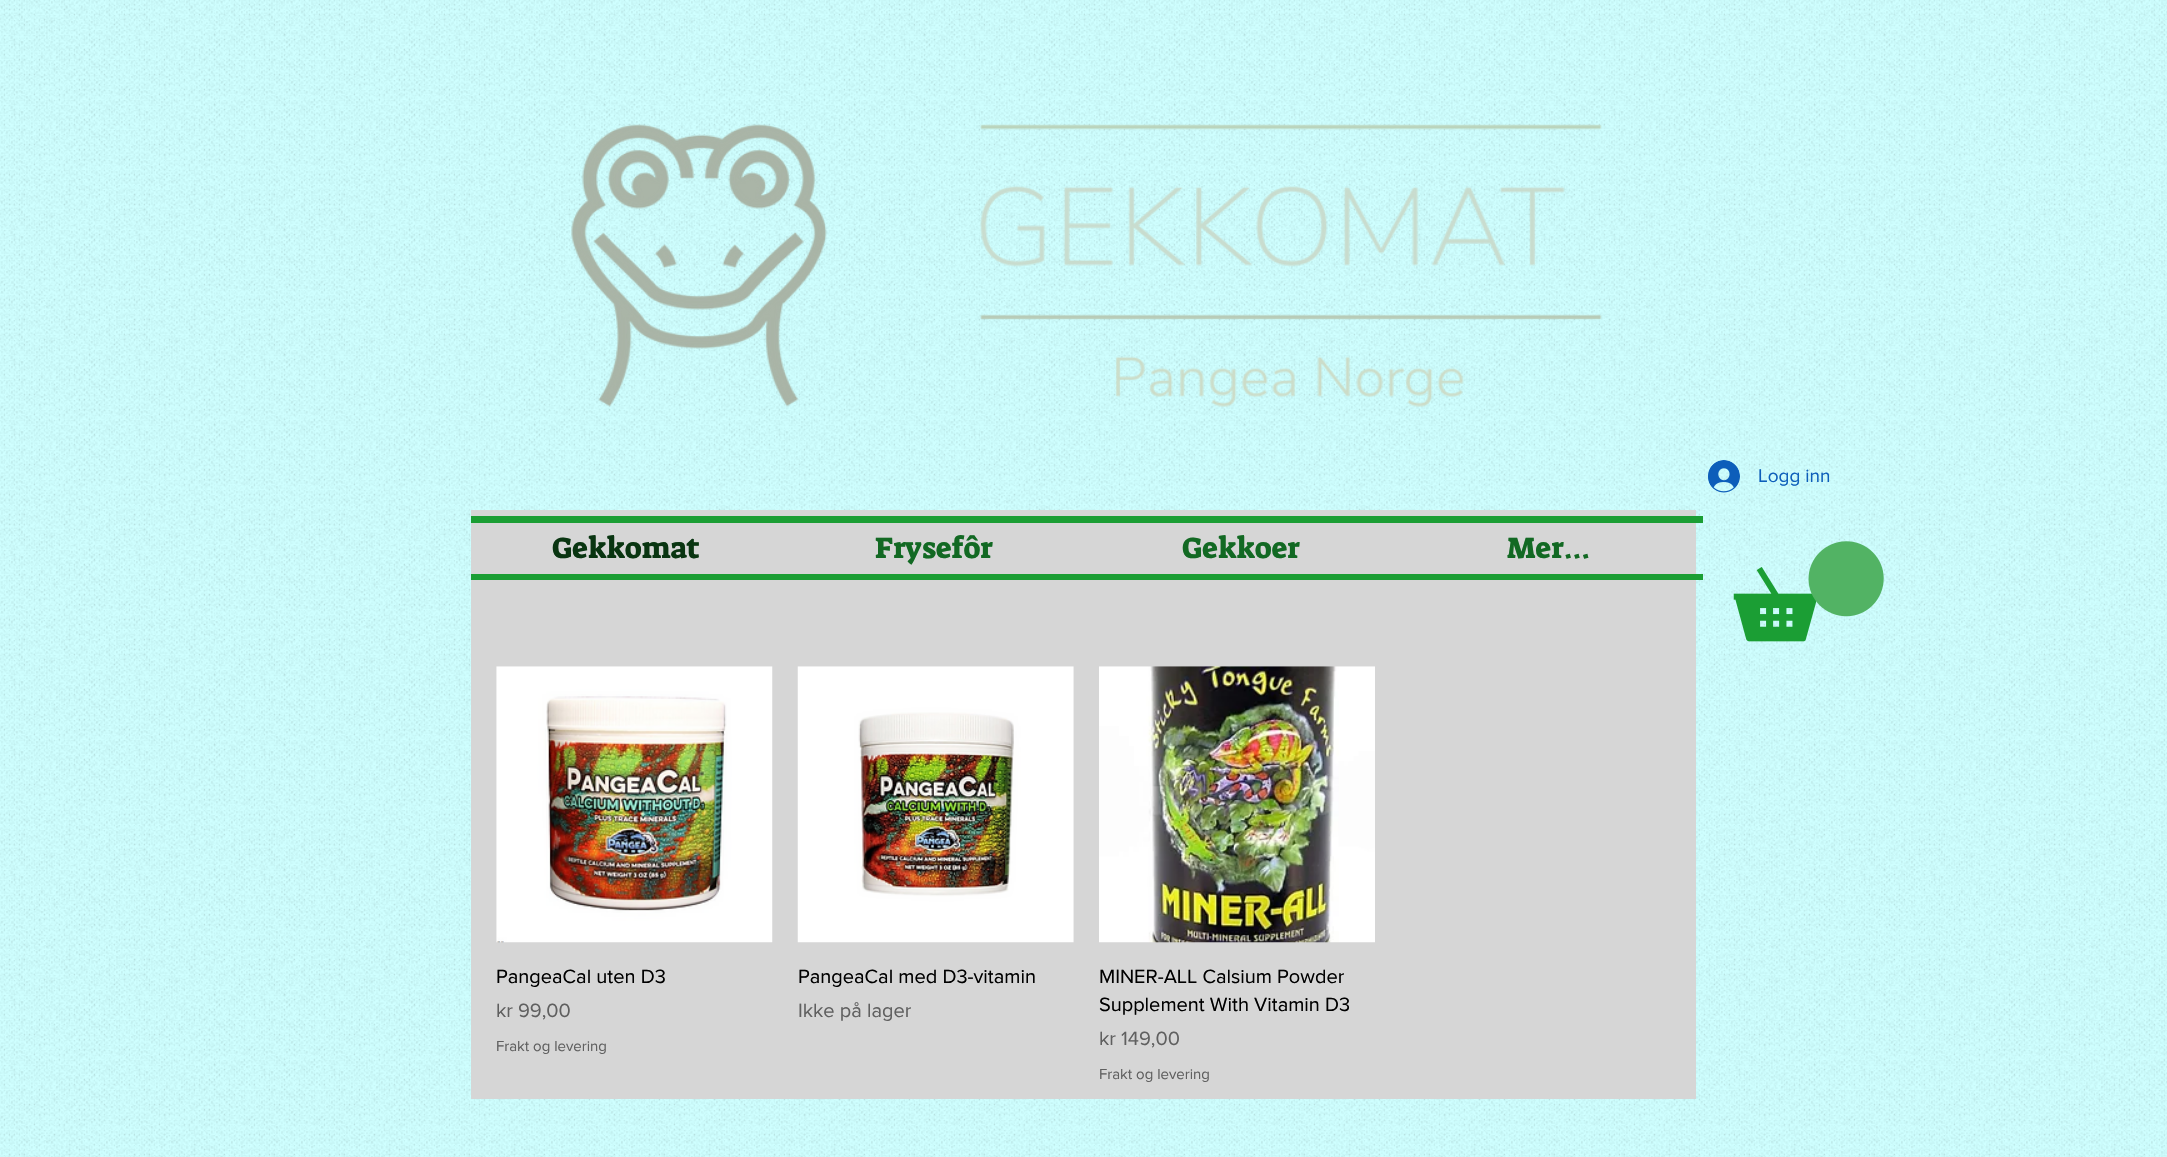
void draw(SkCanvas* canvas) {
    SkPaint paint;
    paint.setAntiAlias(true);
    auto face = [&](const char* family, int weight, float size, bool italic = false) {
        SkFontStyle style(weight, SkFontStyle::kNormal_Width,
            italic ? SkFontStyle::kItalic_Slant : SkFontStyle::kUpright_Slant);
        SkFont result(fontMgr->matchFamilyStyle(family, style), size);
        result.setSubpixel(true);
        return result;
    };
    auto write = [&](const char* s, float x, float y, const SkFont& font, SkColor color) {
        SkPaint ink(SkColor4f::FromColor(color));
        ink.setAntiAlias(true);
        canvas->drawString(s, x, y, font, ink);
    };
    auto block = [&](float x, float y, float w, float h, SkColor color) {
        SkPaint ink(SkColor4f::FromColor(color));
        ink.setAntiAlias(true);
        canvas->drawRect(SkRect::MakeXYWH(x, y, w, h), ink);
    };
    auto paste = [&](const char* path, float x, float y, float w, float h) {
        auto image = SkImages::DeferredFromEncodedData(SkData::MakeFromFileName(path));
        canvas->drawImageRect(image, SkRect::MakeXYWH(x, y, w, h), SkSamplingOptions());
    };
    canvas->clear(SkColorSetRGB(207, 255, 255));
    paste("pic1.png", 0, 0, 2167, 1157);
    paste("pic2.png", 571, 124, 1031, 283);
    paste("pic3.png", 1708, 460, 32, 33);
    auto kFont1 = face("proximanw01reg", 400, 19);
    write("Logg inn", 1758, 482, kFont1, SkColorSetRGB(13, 94, 186));
    block(471, 510, 1225, 589, SkColorSetRGB(214, 214, 214));
    block(471, 516, 1232, 7, SkColorSetRGB(27, 158, 52));
    block(471, 574, 1232, 6, SkColorSetRGB(27, 158, 52));
    auto kFont2 = face("Suez One", 400, 30);
    write("Gekkomat", 552, 558, kFont2, SkColorSetRGB(9, 53, 17));
    write("Frysefôr", 875, 558, kFont2, SkColorSetRGB(18, 105, 35));
    write("Gekkoer", 1182, 558, kFont2, SkColorSetRGB(18, 105, 35));
    write("Mer…", 1507, 558, kFont2, SkColorSetRGB(18, 105, 35));
    paste("pic4.png", 1733, 541, 151, 101);
    paste("pic5.png", 496, 666, 277, 277);
    auto kFont3 = face("proximanw01reg", 400, 20);
    write("PangeaCal uten D3", 496, 983, kFont3, SK_ColorBLACK);
    write("kr 99,00", 496, 1017, kFont3, SkColorSetRGB(96, 96, 96));
    auto kFont4 = face("proximanw01reg", 400, 15);
    write("Frakt og levering", 496, 1051, kFont4, SkColorSetRGB(96, 96, 96));
    paste("pic6.png", 797, 666, 277, 277);
    write("PangeaCal med D3-vitamin", 798, 983, kFont3, SK_ColorBLACK);
    write("Ikke på lager", 798, 1017, kFont3, SkColorSetRGB(96, 96, 96));
    paste("pic7.png", 1099, 666, 276, 277);
    write("MINER-ALL Calsium Powder", 1099, 983, kFont3, SK_ColorBLACK);
    write("Supplement With Vitamin D3", 1099, 1011, kFont3, SK_ColorBLACK);
    write("kr 149,00", 1099, 1045, kFont3, SkColorSetRGB(96, 96, 96));
    write("Frakt og levering", 1099, 1079, kFont4, SkColorSetRGB(96, 96, 96));
}
